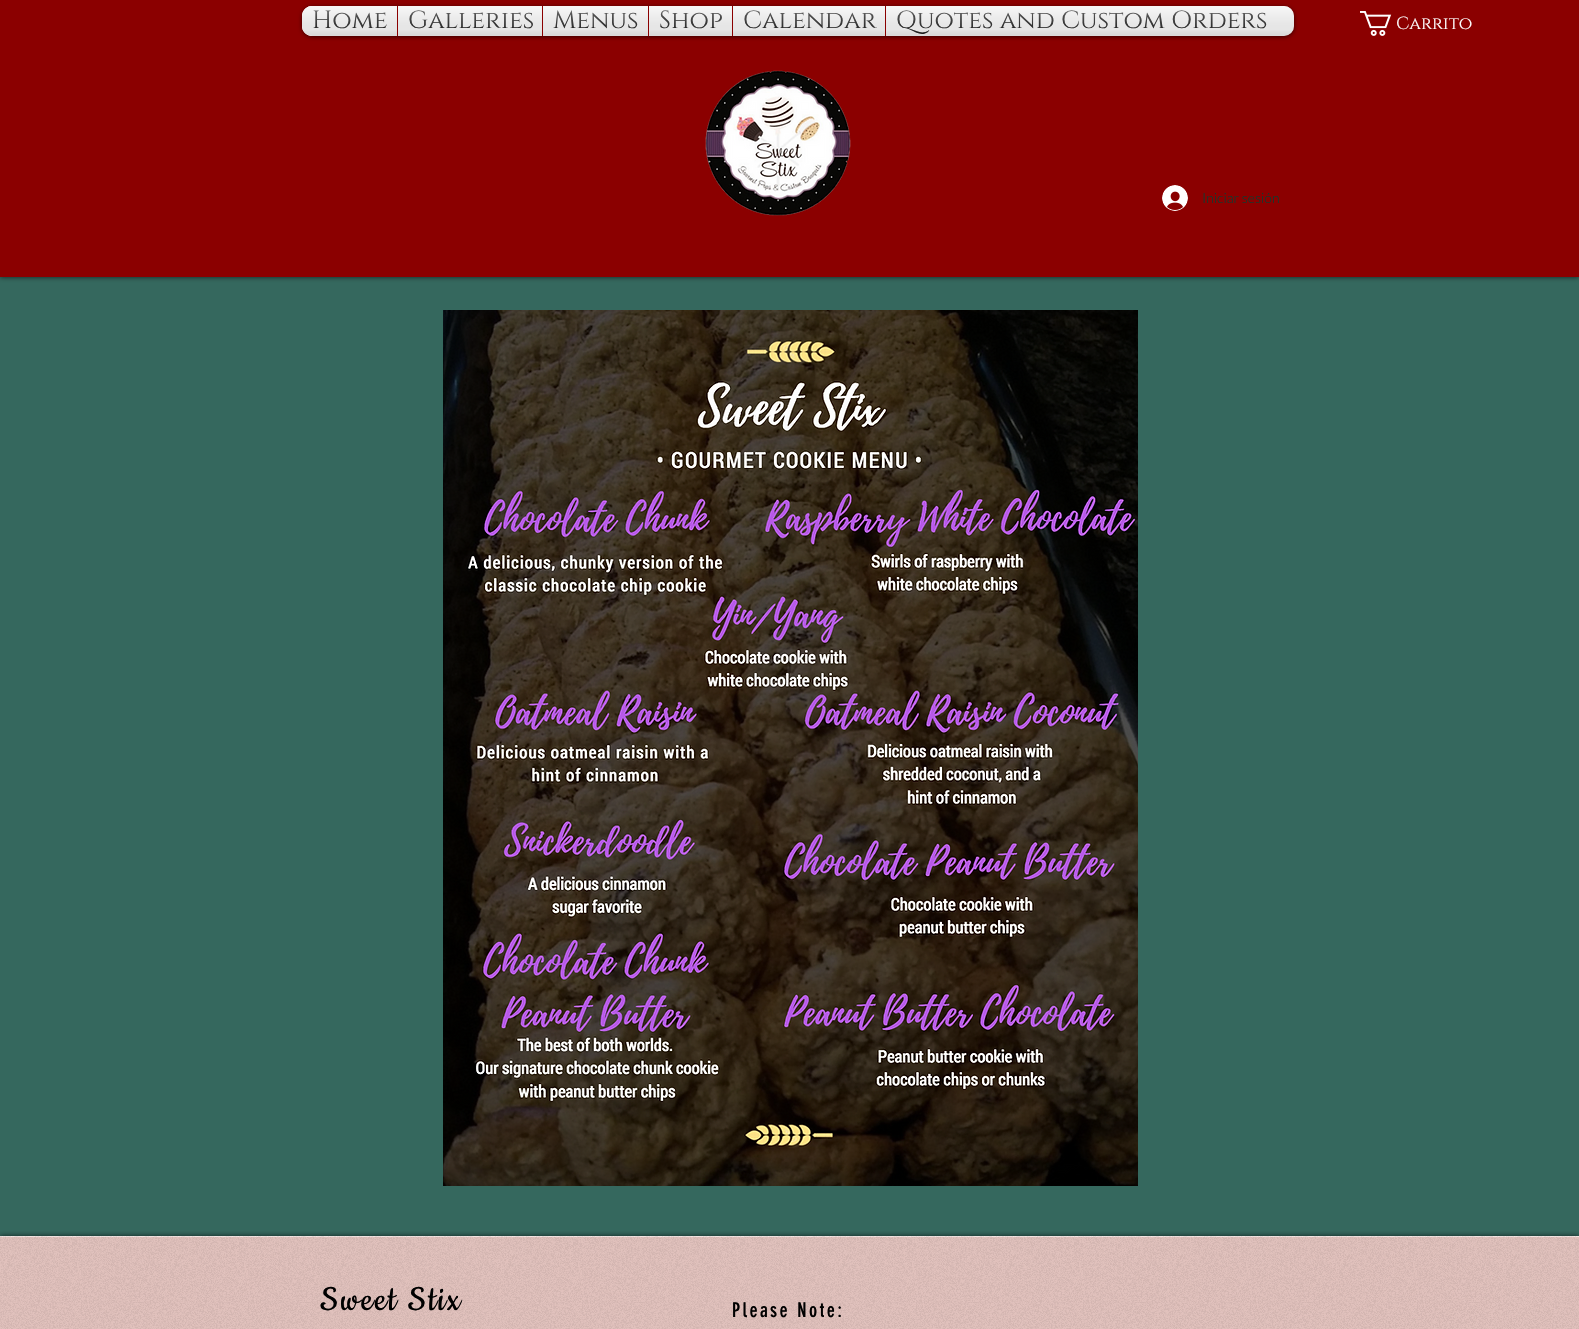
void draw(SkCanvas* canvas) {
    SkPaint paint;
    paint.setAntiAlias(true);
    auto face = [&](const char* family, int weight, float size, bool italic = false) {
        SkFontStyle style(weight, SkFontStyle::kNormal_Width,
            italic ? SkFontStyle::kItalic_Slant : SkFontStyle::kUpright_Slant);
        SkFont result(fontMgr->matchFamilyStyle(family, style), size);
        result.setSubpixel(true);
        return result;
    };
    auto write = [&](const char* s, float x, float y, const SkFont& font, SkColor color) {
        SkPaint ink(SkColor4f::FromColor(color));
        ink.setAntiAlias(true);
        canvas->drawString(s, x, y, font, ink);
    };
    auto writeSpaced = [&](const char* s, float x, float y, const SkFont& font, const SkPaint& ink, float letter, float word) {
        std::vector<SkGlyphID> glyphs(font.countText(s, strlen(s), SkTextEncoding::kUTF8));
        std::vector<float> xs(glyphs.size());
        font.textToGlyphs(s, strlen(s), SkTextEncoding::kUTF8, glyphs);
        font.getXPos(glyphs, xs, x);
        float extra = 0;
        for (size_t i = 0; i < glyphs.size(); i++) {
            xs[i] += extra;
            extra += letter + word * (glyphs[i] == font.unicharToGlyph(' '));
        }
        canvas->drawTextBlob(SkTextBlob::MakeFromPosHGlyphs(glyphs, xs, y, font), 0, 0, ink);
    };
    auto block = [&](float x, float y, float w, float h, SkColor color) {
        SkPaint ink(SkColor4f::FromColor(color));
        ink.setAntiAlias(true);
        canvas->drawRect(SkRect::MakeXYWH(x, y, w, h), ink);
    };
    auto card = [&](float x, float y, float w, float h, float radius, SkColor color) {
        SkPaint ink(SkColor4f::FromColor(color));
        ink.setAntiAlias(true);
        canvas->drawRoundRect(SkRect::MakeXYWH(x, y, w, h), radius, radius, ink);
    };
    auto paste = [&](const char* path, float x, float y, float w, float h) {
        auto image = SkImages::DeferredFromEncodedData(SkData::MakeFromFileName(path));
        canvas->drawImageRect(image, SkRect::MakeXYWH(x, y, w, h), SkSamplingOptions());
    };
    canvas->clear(SkColorSetRGB(53, 104, 94));
    paint.setColor(SkColorSetARGB(179, 0, 0, 0));
    paint.setMaskFilter(SkMaskFilter::MakeBlur(kNormal_SkBlurStyle, 2.5f));
    canvas->drawRect(SkRect::MakeXYWH(0, 0, 1579, 277), paint);
    paint.setMaskFilter(nullptr);
    block(0, 0, 1579, 277, SkColorSetRGB(139, 0, 0));
    paint.setColor(SkColorSetARGB(153, 0, 0, 0));
    paint.setMaskFilter(SkMaskFilter::MakeBlur(kNormal_SkBlurStyle, 2));
    canvas->drawRoundRect(SkRect::MakeXYWH(302, 7, 992, 30), 10, 10, paint);
    paint.setMaskFilter(nullptr);
    card(302, 6, 992, 30, 10, SK_ColorWHITE);
    paste("pic1.png", 302, 6, 992, 28);
    paste("pic2.png", 302, 6, 992, 30);
    paint.setColor(SK_ColorWHITE);
    canvas->drawPath(SkPathBuilder().moveTo(312, 6).lineTo(397, 6).lineTo(397, 36).lineTo(312, 36).cubicTo(306.5f, 36, 302, 31.5f, 302, 26).lineTo(302, 16).cubicTo(302, 10.5f, 306.5f, 6, 312, 6).close().detach(), paint);
    auto kFont1 = face("Cinzel", 400, 25);
    write("Home", 312, 28, kFont1, SK_ColorBLACK);
    paste("pic3.png", 308, 6, 78, 23);
    paste("pic4.png", 302, 6, 95, 30);
    block(398, 6, 144, 30, SK_ColorWHITE);
    block(397, 6, 1, 30, SkColorSetRGB(139, 0, 0));
    write("Galleries", 408, 28, kFont1, SK_ColorBLACK);
    paste("pic5.png", 409, 10, 124, 19);
    paste("pic6.png", 398, 6, 144, 30);
    block(543, 6, 105, 30, SK_ColorWHITE);
    block(542, 6, 1, 30, SkColorSetRGB(139, 0, 0));
    write("Menus", 553, 28, kFont1, SK_ColorBLACK);
    paste("pic7.png", 553, 10, 84, 19);
    paste("pic8.png", 543, 6, 105, 30);
    block(649, 6, 83, 30, SK_ColorWHITE);
    block(648, 6, 1, 30, SkColorSetRGB(139, 0, 0));
    write("Shop", 659, 28, kFont1, SK_ColorBLACK);
    paste("pic9.png", 660, 10, 62, 19);
    paste("pic10.png", 649, 6, 83, 30);
    block(733, 6, 152, 30, SK_ColorWHITE);
    block(732, 6, 1, 30, SkColorSetRGB(139, 0, 0));
    write("Calendar", 743, 28, kFont1, SK_ColorBLACK);
    paste("pic11.png", 744, 10, 132, 19);
    paste("pic12.png", 733, 6, 152, 30);
    block(886, 6, 388, 30, SK_ColorWHITE);
    block(885, 6, 1, 30, SkColorSetRGB(139, 0, 0));
    write("Quotes and Custom Orders", 896, 28, kFont1, SK_ColorBLACK);
    paste("pic13.png", 897, 10, 369, 24);
    paste("pic14.png", 886, 6, 388, 30);
    paste("pic15.png", 1360, 11, 32, 25);
    auto kFont2 = face("Cinzel", 400, 17.5f);
    write("Carrito", 1396, 29, kFont2, SK_ColorWHITE);
    paste("pic16.png", 705, 70, 146, 146);
    paste("pic17.png", 1162, 185, 26, 26);
    auto kFont3 = face("Lato", 300, 14);
    write("Iniciar sesión", 1202, 203, kFont3, SkColorSetRGB(1, 66, 53));
    paste("pic18.png", 443, 310, 695, 876);
    block(0, 1237, 1579, 92, SkColorSetRGB(225, 193, 188));
    block(0, 1236, 1579, 1, SkColorSetRGB(243, 230, 228));
    canvas->save();
    canvas->clipRect(SkRect::MakeXYWH(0, 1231, 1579, 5));
    paint.setColor(SkColorSetARGB(179, 0, 0, 0));
    paint.setMaskFilter(SkMaskFilter::MakeBlur(kNormal_SkBlurStyle, 2.5f));
    canvas->drawRect(SkRect::MakeXYWH(0, 1236, 1579, 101), paint);
    paint.setMaskFilter(nullptr);
    canvas->restore();
    paste("pic19.png", 0, 1236, 1579, 93);
    auto kFont4 = face("Cookie", 400, 40);
    paint.setColor(SK_ColorBLACK);
    writeSpaced("Sweet Stix", 320, 1310, kFont4, paint, 1.75f, 0);
    auto kFont5 = face("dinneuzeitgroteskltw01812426", 400, 20);
    writeSpaced("Please Note:", 732, 1317, kFont5, paint, 2.4f, 0);
}
